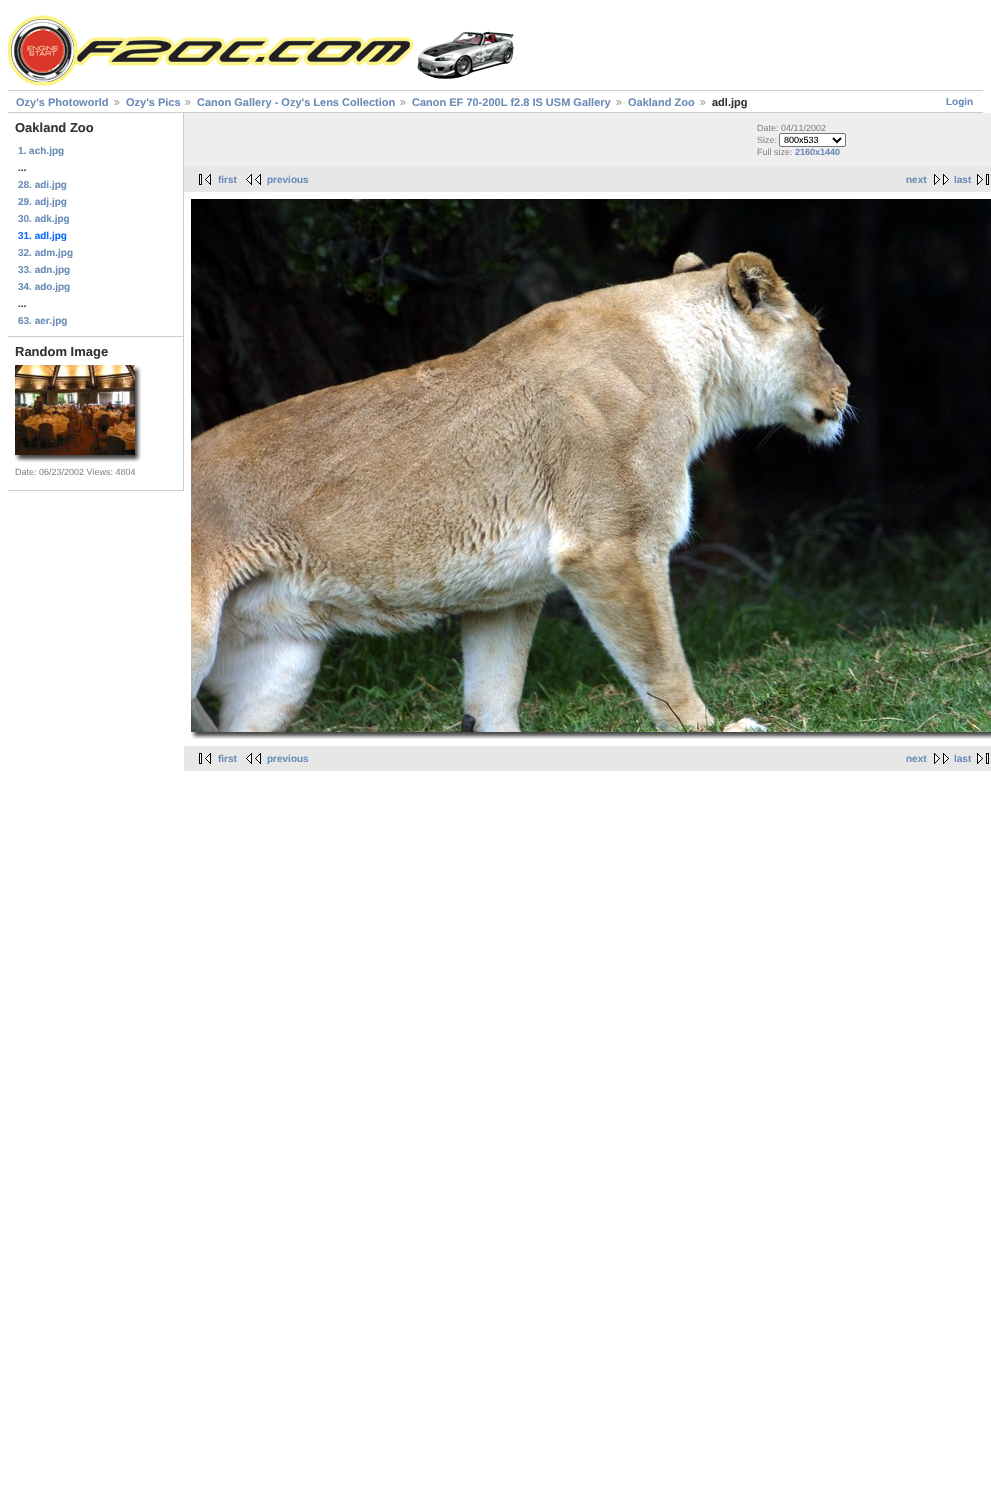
void draw(SkCanvas* canvas) {
    SkPaint paint;
    paint.setAntiAlias(true);
    auto face = [&](const char* family, int weight, float size, bool italic = false) {
        SkFontStyle style(weight, SkFontStyle::kNormal_Width,
            italic ? SkFontStyle::kItalic_Slant : SkFontStyle::kUpright_Slant);
        SkFont result(fontMgr->matchFamilyStyle(family, style), size);
        result.setSubpixel(true);
        return result;
    };
    auto write = [&](const char* s, float x, float y, const SkFont& font, SkColor color) {
        SkPaint ink(SkColor4f::FromColor(color));
        ink.setAntiAlias(true);
        canvas->drawString(s, x, y, font, ink);
    };
    auto block = [&](float x, float y, float w, float h, SkColor color) {
        SkPaint ink(SkColor4f::FromColor(color));
        ink.setAntiAlias(true);
        canvas->drawRect(SkRect::MakeXYWH(x, y, w, h), ink);
    };
    auto paste = [&](const char* path, float x, float y, float w, float h) {
        auto image = SkImages::DeferredFromEncodedData(SkData::MakeFromFileName(path));
        canvas->drawImageRect(image, SkRect::MakeXYWH(x, y, w, h), SkSamplingOptions());
    };
    canvas->clear(SK_ColorWHITE);
    paste("pic1.png", 8, 15, 405, 71);
    paste("pic2.png", 417, 31, 100, 48);
    block(8, 90, 975, 1, SkColorSetRGB(204, 204, 204));
    block(8, 112, 975, 1, SkColorSetRGB(204, 204, 204));
    auto kFont1 = face("Liberation Sans", 700, 11);
    write("Ozy's Photoworld", 16, 106, kFont1, SkColorSetRGB(107, 140, 183));
    paste("pic3.png", 114, 100, 6, 5);
    write("Ozy's Pics", 126, 106, kFont1, SkColorSetRGB(107, 140, 183));
    paste("pic3.png", 185, 100, 6, 5);
    write("Canon Gallery - Ozy's Lens Collection", 197, 106, kFont1, SkColorSetRGB(107, 140, 183));
    paste("pic3.png", 400, 100, 6, 5);
    write("Canon EF 70-200L f2.8 IS USM Gallery", 412, 106, kFont1, SkColorSetRGB(107, 140, 183));
    paste("pic3.png", 616, 100, 6, 5);
    write("Oakland Zoo", 628, 106, kFont1, SkColorSetRGB(107, 140, 183));
    paste("pic3.png", 700, 100, 6, 5);
    write("adl.jpg", 712, 106, kFont1, SkColorSetRGB(51, 51, 51));
    auto kFont2 = face("Liberation Sans", 700, 10);
    write("Login", 946, 105, kFont2, SkColorSetRGB(107, 140, 183));
    block(183, 113, 1, 378, SkColorSetRGB(204, 204, 204));
    block(8, 336, 175, 1, SkColorSetRGB(204, 204, 204));
    auto kFont3 = face("Liberation Sans", 700, 13);
    write("Oakland Zoo", 15, 132, kFont3, SkColorSetRGB(51, 51, 51));
    write("1. ach.jpg", 18, 154, kFont2, SkColorSetRGB(107, 140, 183));
    write("...", 18, 171, kFont2, SkColorSetRGB(51, 51, 51));
    write("28. adi.jpg", 18, 188, kFont2, SkColorSetRGB(107, 140, 183));
    write("29. adj.jpg", 18, 205, kFont2, SkColorSetRGB(107, 140, 183));
    write("30. adk.jpg", 18, 222, kFont2, SkColorSetRGB(107, 140, 183));
    write("31. adl.jpg", 18, 239, kFont2, SkColorSetRGB(11, 108, 255));
    write("32. adm.jpg", 18, 256, kFont2, SkColorSetRGB(107, 140, 183));
    write("33. adn.jpg", 18, 273, kFont2, SkColorSetRGB(107, 140, 183));
    write("34. ado.jpg", 18, 290, kFont2, SkColorSetRGB(107, 140, 183));
    write("...", 18, 307, kFont2, SkColorSetRGB(51, 51, 51));
    write("63. aer.jpg", 18, 324, kFont2, SkColorSetRGB(107, 140, 183));
    block(8, 490, 175, 1, SkColorSetRGB(204, 204, 204));
    write("Random Image", 15, 356, kFont3, SkColorSetRGB(51, 51, 51));
    paste("pic4.png", 15, 365, 120, 90);
    paste("pic5.png", 135, 365, 7, 10);
    paste("pic6.png", 135, 375, 7, 80);
    paste("pic7.png", 15, 455, 9, 7);
    paste("pic8.png", 24, 455, 111, 7);
    paste("pic9.png", 135, 455, 7, 7);
    auto kFont4 = face("Liberation Sans", 400, 9);
    write("Date: 06/23/2002 Views: 4804", 15, 475, kFont4, SkColorSetRGB(136, 136, 136));
    block(184, 113, 807, 54, SkColorSetRGB(238, 238, 238));
    write("Date: 04/11/2002", 757, 131, kFont4, SkColorSetRGB(136, 136, 136));
    write("Size:", 757, 143, kFont4, SkColorSetRGB(136, 136, 136));
    paint.setColor(SK_ColorWHITE);
    canvas->drawRoundRect(SkRect::MakeXYWH(779.5f, 133.5f, 66, 13), 1.5f, 1.5f, paint);
    paint.setStyle(SkPaint::kStroke_Style);
    paint.setStrokeWidth(1);
    paint.setColor(SkColorSetRGB(118, 118, 118));
    canvas->drawRoundRect(SkRect::MakeXYWH(779.5f, 133.5f, 66, 13), 1.5f, 1.5f, paint);
    paint.setStrokeWidth(2);
    paint.setColor(SK_ColorBLACK);
    canvas->drawPath(SkPathBuilder().moveTo(833, 138).lineTo(837, 142).lineTo(841, 138).detach(), paint);
    write("800x533", 784, 143, kFont4, SK_ColorBLACK);
    write("Full size:", 757, 155, kFont4, SkColorSetRGB(136, 136, 136));
    auto kFont5 = face("Liberation Sans", 700, 9);
    write("2160x1440", 795, 155, kFont5, SkColorSetRGB(107, 140, 183));
    block(184, 167, 807, 25, SkColorSetRGB(231, 231, 231));
    paste("pic10.png", 199, 174, 12, 11);
    write("first", 218, 183, kFont2, SkColorSetRGB(107, 140, 183));
    paste("pic11.png", 246, 174, 15, 11);
    write("previous", 267, 183, kFont2, SkColorSetRGB(107, 140, 183));
    write("next", 906, 183, kFont2, SkColorSetRGB(107, 140, 183));
    paste("pic12.png", 934, 174, 15, 11);
    write("last", 954, 183, kFont2, SkColorSetRGB(107, 140, 183));
    paste("pic13.png", 977, 174, 12, 11);
    paste("pic14.png", 191, 199, 800, 533);
    paste("pic7.png", 191, 732, 9, 7);
    paste("pic15.png", 200, 732, 791, 7);
    block(184, 746, 807, 25, SkColorSetRGB(231, 231, 231));
    paste("pic10.png", 199, 753, 12, 11);
    write("first", 218, 762, kFont2, SkColorSetRGB(107, 140, 183));
    paste("pic11.png", 246, 753, 15, 11);
    write("previous", 267, 762, kFont2, SkColorSetRGB(107, 140, 183));
    write("next", 906, 762, kFont2, SkColorSetRGB(107, 140, 183));
    paste("pic12.png", 934, 753, 15, 11);
    write("last", 954, 762, kFont2, SkColorSetRGB(107, 140, 183));
    paste("pic13.png", 977, 753, 12, 11);
}
